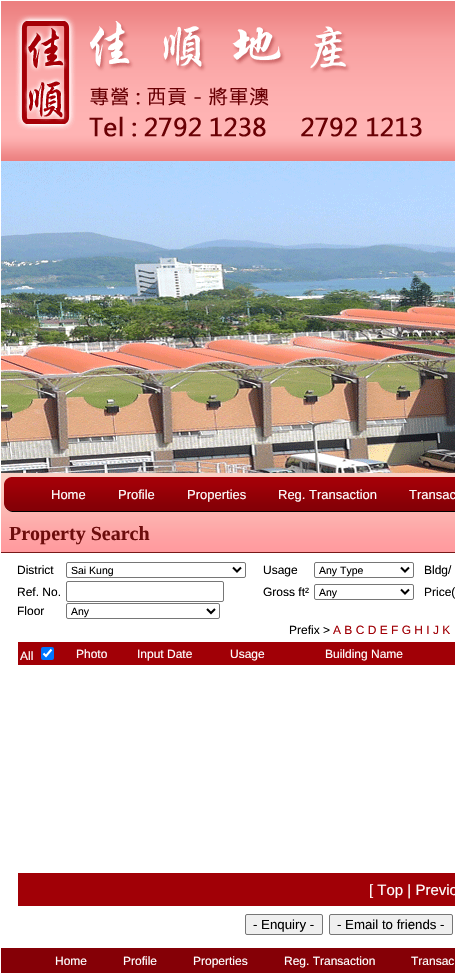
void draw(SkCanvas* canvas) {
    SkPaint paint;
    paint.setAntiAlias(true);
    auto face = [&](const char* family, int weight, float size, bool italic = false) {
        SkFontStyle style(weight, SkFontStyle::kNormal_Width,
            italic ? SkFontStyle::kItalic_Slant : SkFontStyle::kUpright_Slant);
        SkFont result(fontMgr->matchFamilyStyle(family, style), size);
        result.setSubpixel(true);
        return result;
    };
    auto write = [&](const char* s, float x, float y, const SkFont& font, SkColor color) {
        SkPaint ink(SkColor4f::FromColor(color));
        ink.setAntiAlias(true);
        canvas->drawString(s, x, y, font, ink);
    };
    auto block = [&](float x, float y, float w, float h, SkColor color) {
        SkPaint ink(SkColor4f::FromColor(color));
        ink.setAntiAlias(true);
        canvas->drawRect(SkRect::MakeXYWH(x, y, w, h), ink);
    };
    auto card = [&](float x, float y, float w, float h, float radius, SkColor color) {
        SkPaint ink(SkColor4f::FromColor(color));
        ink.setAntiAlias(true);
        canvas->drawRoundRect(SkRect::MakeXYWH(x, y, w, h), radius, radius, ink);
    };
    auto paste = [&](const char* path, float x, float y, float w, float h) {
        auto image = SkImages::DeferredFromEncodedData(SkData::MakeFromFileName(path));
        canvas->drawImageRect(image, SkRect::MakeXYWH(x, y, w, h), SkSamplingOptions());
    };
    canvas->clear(SK_ColorWHITE);
    paste("pic1.png", 1, 1, 454, 160);
    paste("pic2.png", 1, 161, 454, 312);
    paste("pic3.png", 1, 473, 454, 39);
    auto kFont1 = face("Liberation Sans", 400, 13);
    write("Home", 51, 499, kFont1, SK_ColorWHITE);
    write("Profile", 118, 499, kFont1, SK_ColorWHITE);
    write("Properties", 187, 499, kFont1, SK_ColorWHITE);
    write("Reg. Transaction", 278, 499, kFont1, SK_ColorWHITE);
    write("Transac", 409, 499, kFont1, SK_ColorWHITE);
    paste("pic4.png", 1, 512, 454, 41);
    auto kFont2 = face("Liberation Serif", 700, 20);
    write("Property Search", 9, 540, kFont2, SkColorSetRGB(109, 13, 13));
    auto kFont3 = face("Liberation Sans", 400, 12);
    write("District", 17, 574, kFont3, SK_ColorBLACK);
    paint.setStyle(SkPaint::kStroke_Style);
    paint.setStrokeWidth(1);
    paint.setColor(SkColorSetRGB(118, 118, 118));
    canvas->drawRoundRect(SkRect::MakeXYWH(66.5f, 562.5f, 179, 15), 1.5f, 1.5f, paint);
    paint.setStrokeWidth(2);
    paint.setColor(SK_ColorBLACK);
    canvas->drawPath(SkPathBuilder().moveTo(233, 567.5f).lineTo(237, 571.5f).lineTo(241, 567.5f).detach(), paint);
    auto kFont4 = face("Liberation Sans", 400, 10.5f);
    write("Sai Kung", 71, 574, kFont4, SK_ColorBLACK);
    write("Usage", 263, 574, kFont3, SK_ColorBLACK);
    paint.setStrokeWidth(1);
    paint.setColor(SkColorSetRGB(118, 118, 118));
    canvas->drawRoundRect(SkRect::MakeXYWH(314.5f, 562.5f, 99, 15), 1.5f, 1.5f, paint);
    paint.setStrokeWidth(2);
    paint.setColor(SK_ColorBLACK);
    canvas->drawPath(SkPathBuilder().moveTo(401, 567.5f).lineTo(405, 571.5f).lineTo(409, 567.5f).detach(), paint);
    write("Any Type", 319, 574, kFont4, SK_ColorBLACK);
    write("Bldg/", 424, 574, kFont3, SK_ColorBLACK);
    write("Ref. No.", 17, 596, kFont3, SK_ColorBLACK);
    paint.setStrokeWidth(1);
    paint.setColor(SkColorSetRGB(118, 118, 118));
    canvas->drawRoundRect(SkRect::MakeXYWH(66.5f, 581.5f, 157, 20), 1.5f, 1.5f, paint);
    write("Gross ft²", 263, 596, kFont3, SK_ColorBLACK);
    canvas->drawRoundRect(SkRect::MakeXYWH(314.5f, 584.5f, 99, 15), 1.5f, 1.5f, paint);
    paint.setStrokeWidth(2);
    paint.setColor(SK_ColorBLACK);
    canvas->drawPath(SkPathBuilder().moveTo(401, 589.5f).lineTo(405, 593.5f).lineTo(409, 589.5f).detach(), paint);
    write("Any", 319, 596, kFont4, SK_ColorBLACK);
    write("Price(", 424, 596, kFont3, SK_ColorBLACK);
    write("Floor", 17, 615, kFont3, SK_ColorBLACK);
    paint.setStrokeWidth(1);
    paint.setColor(SkColorSetRGB(118, 118, 118));
    canvas->drawRoundRect(SkRect::MakeXYWH(66.5f, 603.5f, 153, 15), 1.5f, 1.5f, paint);
    paint.setStrokeWidth(2);
    paint.setColor(SK_ColorBLACK);
    canvas->drawPath(SkPathBuilder().moveTo(207, 609).lineTo(211, 613).lineTo(215, 609).detach(), paint);
    write("Any", 71, 615, kFont4, SK_ColorBLACK);
    write("Prefix >", 289, 634, kFont3, SK_ColorBLACK);
    write("A B C D E F G H I J K", 333, 634, kFont3, SkColorSetRGB(161, 0, 6));
    block(18, 642, 437, 23, SkColorSetRGB(161, 0, 6));
    write("All", 20, 660, kFont3, SK_ColorWHITE);
    card(41, 647, 13, 13, 2, SkColorSetRGB(0, 117, 255));
    paint.setStrokeWidth(2.1f);
    paint.setColor(SK_ColorWHITE);
    canvas->drawPath(SkPathBuilder().moveTo(43.5f, 653.5f).lineTo(46, 656).lineTo(51.5f, 649.5f).detach(), paint);
    write("Photo", 76, 658, kFont3, SK_ColorWHITE);
    write("Input Date", 137, 658, kFont3, SK_ColorWHITE);
    write("Usage", 230, 658, kFont3, SK_ColorWHITE);
    write("Building Name", 325, 658, kFont3, SK_ColorWHITE);
    block(18, 873, 437, 33, SkColorSetRGB(161, 0, 6));
    auto kFont5 = face("Liberation Sans", 400, 15);
    write("[ Top | Previo", 369, 895, kFont5, SK_ColorWHITE);
    paint.setStyle(SkPaint::kFill_Style);
    paint.setColor(SkColorSetRGB(239, 239, 239));
    canvas->drawRoundRect(SkRect::MakeXYWH(245.5f, 914.5f, 77, 20), 1.5f, 1.5f, paint);
    paint.setStyle(SkPaint::kStroke_Style);
    paint.setStrokeWidth(1);
    paint.setColor(SkColorSetRGB(118, 118, 118));
    canvas->drawRoundRect(SkRect::MakeXYWH(245.5f, 914.5f, 77, 20), 1.5f, 1.5f, paint);
    auto kFont6 = face("Liberation Sans", 400, 13.25f);
    write("- Enquiry -", 253, 929, kFont6, SK_ColorBLACK);
    paint.setStyle(SkPaint::kFill_Style);
    paint.setColor(SkColorSetRGB(239, 239, 239));
    canvas->drawRoundRect(SkRect::MakeXYWH(329.5f, 914.5f, 123, 20), 1.5f, 1.5f, paint);
    paint.setStyle(SkPaint::kStroke_Style);
    paint.setColor(SkColorSetRGB(118, 118, 118));
    canvas->drawRoundRect(SkRect::MakeXYWH(329.5f, 914.5f, 123, 20), 1.5f, 1.5f, paint);
    write("- Email to friends -", 337, 929, kFont6, SK_ColorBLACK);
    block(1, 948, 454, 25, SkColorSetRGB(133, 0, 6));
    write("Home", 55, 965, kFont3, SK_ColorWHITE);
    write("Profile", 123, 965, kFont3, SK_ColorWHITE);
    write("Properties", 193, 965, kFont3, SK_ColorWHITE);
    write("Reg. Transaction", 284, 965, kFont3, SK_ColorWHITE);
    write("Transac", 411, 965, kFont3, SK_ColorWHITE);
}
